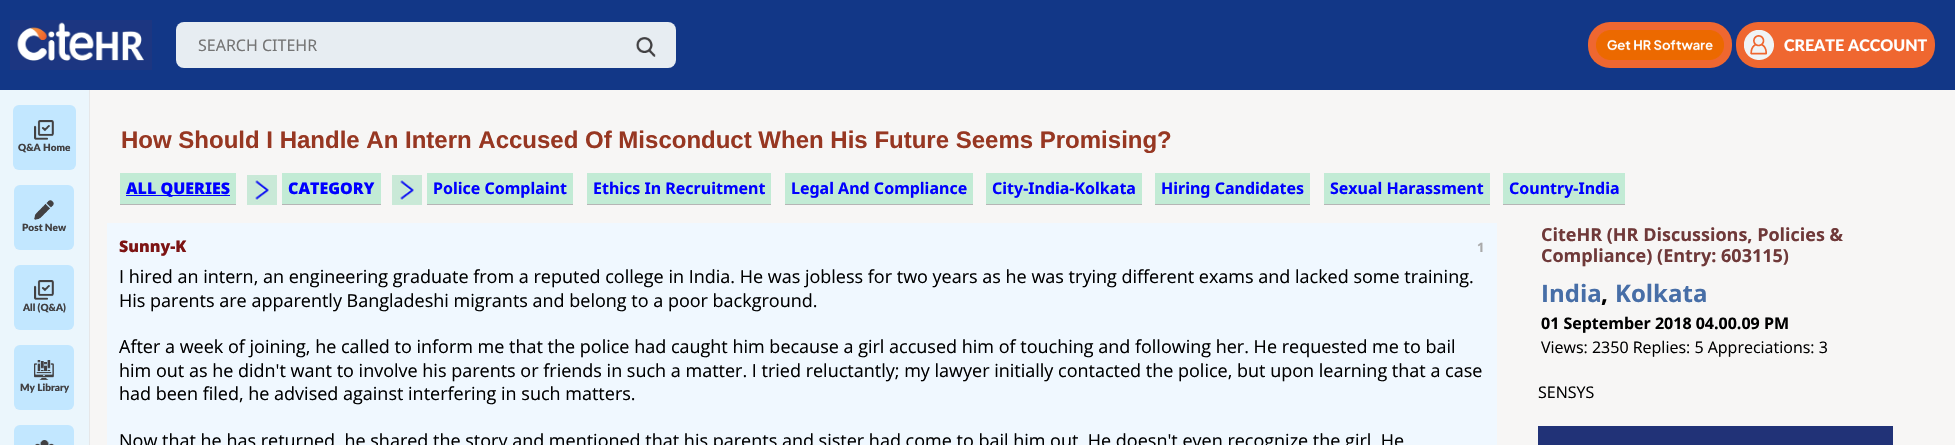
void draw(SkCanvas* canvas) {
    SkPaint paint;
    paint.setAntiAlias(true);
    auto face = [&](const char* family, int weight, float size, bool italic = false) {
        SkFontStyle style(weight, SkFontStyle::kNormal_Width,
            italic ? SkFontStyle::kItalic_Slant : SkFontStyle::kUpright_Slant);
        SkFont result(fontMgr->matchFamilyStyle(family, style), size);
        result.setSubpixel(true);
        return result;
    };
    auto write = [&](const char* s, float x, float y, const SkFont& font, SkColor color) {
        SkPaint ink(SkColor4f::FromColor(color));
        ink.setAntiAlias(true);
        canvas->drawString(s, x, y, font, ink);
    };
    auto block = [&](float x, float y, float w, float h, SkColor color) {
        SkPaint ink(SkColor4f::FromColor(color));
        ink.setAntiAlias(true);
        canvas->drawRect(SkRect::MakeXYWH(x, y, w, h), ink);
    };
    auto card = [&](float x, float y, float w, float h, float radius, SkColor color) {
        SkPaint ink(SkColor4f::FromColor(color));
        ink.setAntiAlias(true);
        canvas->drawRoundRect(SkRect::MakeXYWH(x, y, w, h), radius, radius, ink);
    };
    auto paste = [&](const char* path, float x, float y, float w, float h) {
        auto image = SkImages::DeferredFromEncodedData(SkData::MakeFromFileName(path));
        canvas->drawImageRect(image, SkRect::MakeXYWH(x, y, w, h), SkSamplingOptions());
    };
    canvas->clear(SkColorSetRGB(247, 246, 245));
    block(0, 0, 1955, 90, SkColorSetRGB(18, 55, 135));
    paste("pic1.png", 10, 20, 142, 50);
    card(176, 22, 500, 46, 8, SkColorSetRGB(231, 237, 242));
    auto kFont1 = face("Noto Sans", 400, 16);
    write("SEARCH CITEHR", 198, 51, kFont1, SkColorSetRGB(117, 117, 117));
    paste("pic2.png", 636, 37, 20, 20);
    card(1588, 22, 144, 46, 22, SkColorSetRGB(239, 103, 48));
    paste("pic3.png", 1596, 30, 128, 30);
    card(1736, 22, 199, 46, 22, SkColorSetRGB(239, 103, 48));
    paste("pic4.png", 1744, 30, 30, 30);
    auto kFont2 = face("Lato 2", 900, 16);
    write("CREATE ACCOUNT", 1784, 51, kFont2, SK_ColorWHITE);
    block(0, 90, 89, 355, SkColorSetRGB(235, 246, 252));
    block(89, 90, 1, 355, SkColorSetRGB(230, 231, 232));
    card(13, 105, 63, 65, 6, SkColorSetRGB(194, 231, 255));
    paste("pic5.png", 34, 120, 20, 20);
    auto kFont3 = face("Lato", 900, 10);
    write("Q&A Home", 18, 151, kFont3, SkColorSetRGB(65, 64, 66));
    card(14, 185, 60, 65, 6, SkColorSetRGB(194, 231, 255));
    paste("pic6.png", 34, 200, 20, 20);
    write("Post New", 22, 231, kFont3, SkColorSetRGB(65, 64, 66));
    card(14, 265, 60, 65, 6, SkColorSetRGB(194, 231, 255));
    paste("pic7.png", 34, 280, 20, 20);
    write("All (Q&A)", 23, 311, kFont3, SkColorSetRGB(65, 64, 66));
    card(14, 345, 60, 65, 6, SkColorSetRGB(194, 231, 255));
    paste("pic8.png", 34, 360, 20, 20);
    write("My Library", 20, 391, kFont3, SkColorSetRGB(65, 64, 66));
    card(14, 425, 60, 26, 6, SkColorSetRGB(194, 231, 255));
    paste("pic9.png", 35, 440, 20, 5);
    auto kFont4 = face("Liberation Sans", 700, 24);
    write("How Should I Handle An Intern Accused Of Misconduct When His Future Seems Promising?", 121, 148, kFont4, SkColorSetRGB(151, 55, 34));
    block(120, 173, 116, 31, SkColorSetRGB(194, 235, 213));
    block(120, 204, 116, 1, SkColorSetRGB(181, 181, 181));
    block(126, 195, 104, 1, SkColorSetRGB(0, 0, 255));
    auto kFont5 = face("Noto Sans", 900, 16);
    write("ALL QUERIES", 126, 194, kFont5, SkColorSetRGB(0, 0, 255));
    paste("pic10.png", 247, 175, 30, 30);
    block(282, 173, 99, 31, SkColorSetRGB(194, 235, 213));
    block(282, 204, 99, 1, SkColorSetRGB(181, 181, 181));
    write("CATEGORY", 288, 194, kFont5, SkColorSetRGB(0, 0, 255));
    paste("pic10.png", 392, 175, 30, 30);
    block(427, 173, 146, 31, SkColorSetRGB(194, 235, 213));
    block(427, 204, 146, 1, SkColorSetRGB(181, 181, 181));
    auto kFont6 = face("Noto Sans", 700, 16);
    write("Police Complaint", 433, 194, kFont6, SkColorSetRGB(0, 0, 255));
    block(587, 173, 184, 31, SkColorSetRGB(194, 235, 213));
    block(587, 204, 184, 1, SkColorSetRGB(181, 181, 181));
    write("Ethics In Recruitment", 593, 194, kFont6, SkColorSetRGB(0, 0, 255));
    block(785, 173, 188, 31, SkColorSetRGB(194, 235, 213));
    block(785, 204, 188, 1, SkColorSetRGB(181, 181, 181));
    write("Legal And Compliance", 791, 194, kFont6, SkColorSetRGB(0, 0, 255));
    block(986, 173, 156, 31, SkColorSetRGB(194, 235, 213));
    block(986, 204, 156, 1, SkColorSetRGB(181, 181, 181));
    write("City-India-Kolkata", 992, 194, kFont6, SkColorSetRGB(0, 0, 255));
    block(1155, 173, 155, 31, SkColorSetRGB(194, 235, 213));
    block(1155, 204, 155, 1, SkColorSetRGB(181, 181, 181));
    write("Hiring Candidates", 1161, 194, kFont6, SkColorSetRGB(0, 0, 255));
    block(1324, 173, 166, 31, SkColorSetRGB(194, 235, 213));
    block(1324, 204, 166, 1, SkColorSetRGB(181, 181, 181));
    write("Sexual Harassment", 1330, 194, kFont6, SkColorSetRGB(0, 0, 255));
    block(1503, 173, 122, 31, SkColorSetRGB(194, 235, 213));
    block(1503, 204, 122, 1, SkColorSetRGB(181, 181, 181));
    write("Country-India", 1509, 194, kFont6, SkColorSetRGB(0, 0, 255));
    block(107, 223, 1390, 222, SkColorSetRGB(240, 248, 255));
    auto kFont7 = face("Open Sans", 800, 16);
    write("Sunny-K", 119, 252, kFont7, SkColorSetRGB(125, 20, 20));
    auto kFont8 = face("Open Sans", 700, 13);
    write("1", 1477, 252, kFont8, SkColorSetRGB(170, 170, 170));
    auto kFont9 = face("Open Sans", 400, 18);
    write("I hired an intern, an engineering graduate from a reputed college in India. He was jobless for two years as he was trying different exams and lacked some training.", 119, 283, kFont9, SK_ColorBLACK);
    write("His parents are apparently Bangladeshi migrants and belong to a poor background.", 119, 307, kFont9, SK_ColorBLACK);
    write("After a week of joining, he called to inform me that the police had caught him because a girl accused him of touching and following her. He requested me to bail", 119, 353, kFont9, SK_ColorBLACK);
    write("him out as he didn't want to involve his parents or friends in such a matter. I tried reluctantly; my lawyer initially contacted the police, but upon learning that a case", 119, 377, kFont9, SK_ColorBLACK);
    write("had been filed, he advised against interfering in such matters.", 119, 400, kFont9, SK_ColorBLACK);
    write("Now that he has returned, he shared the story and mentioned that his parents and sister had come to bail him out. He doesn't even recognize the girl. He", 119, 447, kFont9, SK_ColorBLACK);
    auto kFont10 = face("Open Sans", 700, 18);
    write("CiteHR (HR Discussions, Policies &", 1541, 241, kFont10, SkColorSetRGB(111, 57, 57));
    write("Compliance) (Entry: 603115)", 1541, 262, kFont10, SkColorSetRGB(111, 57, 57));
    auto kFont11 = face("Open Sans", 700, 24);
    write("India", 1541, 302, kFont11, SkColorSetRGB(71, 110, 167));
    write(",", 1601, 302, kFont11, SK_ColorBLACK);
    write("Kolkata", 1615, 302, kFont11, SkColorSetRGB(71, 110, 167));
    auto kFont12 = face("Open Sans", 700, 16);
    write("01 September 2018 04.00.09 PM", 1541, 329, kFont12, SK_ColorBLACK);
    auto kFont13 = face("Open Sans", 400, 16);
    write("Views: 2350 Replies: 5 Appreciations: 3", 1541, 353, kFont13, SK_ColorBLACK);
    write("SENSYS", 1538, 398, kFont13, SK_ColorBLACK);
    block(1538, 426, 355, 19, SkColorSetRGB(33, 50, 119));
}
